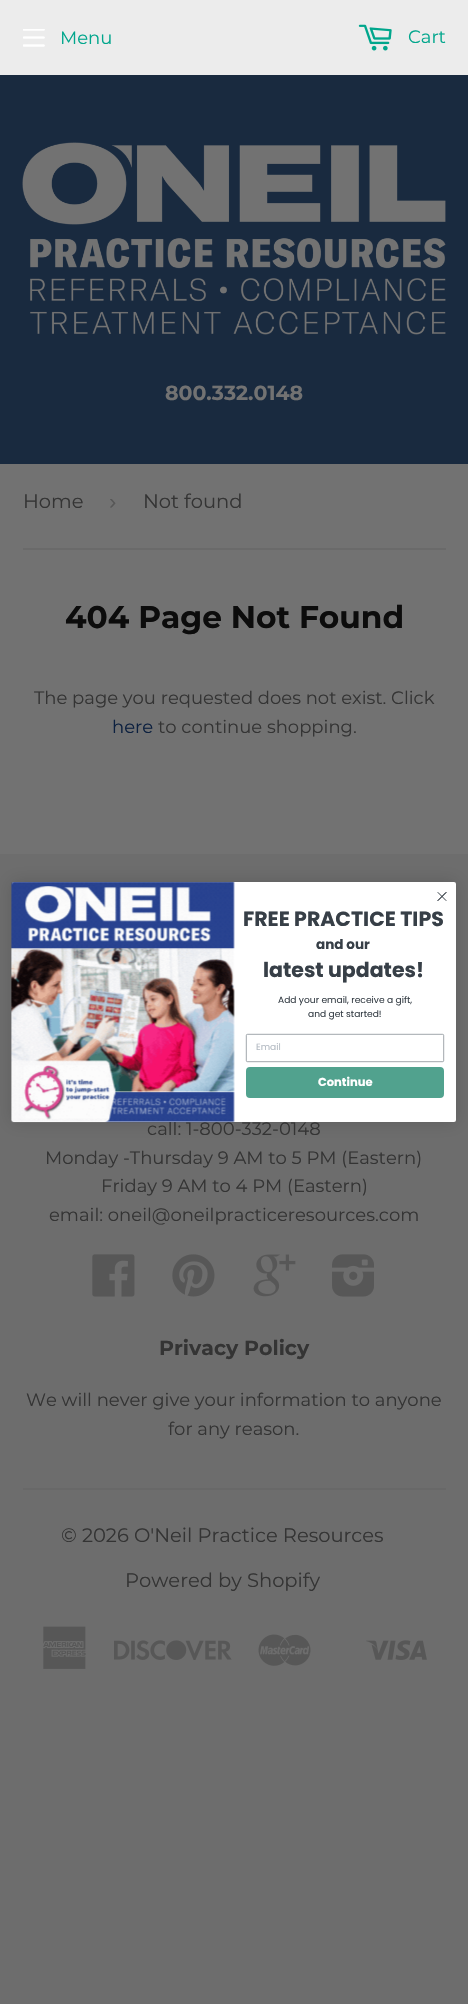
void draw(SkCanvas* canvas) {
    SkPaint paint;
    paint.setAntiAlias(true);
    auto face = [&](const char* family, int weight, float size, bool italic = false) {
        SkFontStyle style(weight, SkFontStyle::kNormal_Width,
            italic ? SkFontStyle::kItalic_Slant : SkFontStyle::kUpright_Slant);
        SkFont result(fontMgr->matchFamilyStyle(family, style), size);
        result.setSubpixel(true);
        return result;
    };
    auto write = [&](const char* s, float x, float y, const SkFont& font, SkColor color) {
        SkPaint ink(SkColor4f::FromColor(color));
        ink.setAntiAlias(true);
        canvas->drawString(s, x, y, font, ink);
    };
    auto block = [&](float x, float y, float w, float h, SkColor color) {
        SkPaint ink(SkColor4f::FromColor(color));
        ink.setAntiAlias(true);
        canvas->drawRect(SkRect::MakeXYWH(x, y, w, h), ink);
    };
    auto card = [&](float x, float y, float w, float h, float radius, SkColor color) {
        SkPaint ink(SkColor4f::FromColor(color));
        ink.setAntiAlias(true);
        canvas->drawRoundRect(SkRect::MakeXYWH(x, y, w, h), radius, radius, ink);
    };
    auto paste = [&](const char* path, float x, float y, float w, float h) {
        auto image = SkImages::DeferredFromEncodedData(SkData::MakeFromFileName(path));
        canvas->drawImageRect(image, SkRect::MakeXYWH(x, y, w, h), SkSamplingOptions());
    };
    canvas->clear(SkColorSetRGB(109, 109, 109));
    block(0, 464, 468, 390, SkColorSetRGB(114, 114, 114));
    block(0, 0, 468, 75, SkColorSetRGB(236, 236, 236));
    paste("pic1.png", 23, 29, 22, 18);
    auto kFont1 = face("Montserrat", 400, 18);
    write("Menu", 60, 44, kFont1, SkColorSetRGB(0, 166, 140));
    paste("pic2.png", 358, 24, 34, 27);
    write("Cart", 408, 43, kFont1, SkColorSetRGB(0, 166, 140));
    block(0, 75, 468, 389, SkColorSetRGB(25, 42, 63));
    paste("pic3.png", 22, 142, 424, 193);
    auto kFont2 = face("Montserrat", 700, 20.5f);
    write("800.332.0148", 165, 400, kFont2, SkColorSetRGB(114, 114, 114));
    block(23, 548, 423, 2, SkColorSetRGB(106, 106, 106));
    auto kFont3 = face("Montserrat", 400, 19.5f);
    write("Home", 23, 508, kFont3, SkColorSetRGB(52, 52, 52));
    auto kFont4 = face("Liberation Sans", 400, 22);
    write("›", 109, 509, kFont4, SkColorSetRGB(87, 87, 87));
    write("Not found", 143, 508, kFont3, SkColorSetRGB(52, 52, 52));
    auto kFont5 = face("Montserrat", 700, 31.25f);
    write("404 Page Not Found", 65, 628, kFont5, SkColorSetRGB(12, 12, 12));
    write("The page you requested does not exist. Click", 34, 704, kFont1, SkColorSetRGB(52, 52, 52));
    write("here", 112, 733, kFont1, SkColorSetRGB(12, 32, 63));
    write("to continue shopping.", 158, 733, kFont1, SkColorSetRGB(52, 52, 52));
    paint.setColor(SkColorSetARGB(38, 0, 0, 0));
    paint.setMaskFilter(SkMaskFilter::MakeBlur(kNormal_SkBlurStyle, 8.5f));
    canvas->drawRoundRect(SkRect::MakeXYWH(12, 882, 444, 240), 2, 2, paint);
    paint.setMaskFilter(nullptr);
    write("call: 1-800-332-0148", 147, 1135, kFont1, SkColorSetRGB(52, 52, 52));
    card(12, 882, 444, 240, 2, SK_ColorWHITE);
    paint.setStyle(SkPaint::kStroke_Style);
    paint.setStrokeWidth(1);
    paint.setStrokeCap(SkPaint::kRound_Cap);
    paint.setStrokeJoin(SkPaint::kRound_Join);
    paint.setColor(SkColorSetRGB(55, 63, 71));
    canvas->drawPath(SkPathBuilder().moveTo(438, 892.5f).lineTo(446, 900.5f).moveTo(438, 900.5f).lineTo(446, 892.5f).close().detach(), paint);
    paste("pic4.png", 11, 882, 224, 241);
    auto kFont6 = face("Poppins", 700, 20.5f);
    write("FREE PRACTICE TIPS", 243, 926, kFont6, SkColorSetRGB(55, 63, 71));
    auto kFont7 = face("Poppins", 700, 13.5f);
    write("and our", 316, 949, kFont7, SkColorSetRGB(55, 63, 71));
    write("latest updates!", 263, 977, kFont6, SkColorSetRGB(55, 63, 71));
    auto kFont8 = face("Poppins", 400, 9.1f);
    write("Add your email, receive a gift,", 278, 1003, kFont8, SkColorSetRGB(55, 63, 71));
    write("and get started!", 308, 1017, kFont8, SkColorSetRGB(55, 63, 71));
    paint.setStrokeWidth(0.6f);
    paint.setStrokeCap(SkPaint::kButt_Cap);
    paint.setStrokeJoin(SkPaint::kMiter_Join);
    paint.setColor(SkColorSetRGB(96, 106, 114));
    canvas->drawRoundRect(SkRect::MakeXYWH(246.3f, 1034.3f, 197.4f, 27.4f), 1.2f, 1.2f, paint);
    write("Email", 256, 1050, kFont8, SkColorSetRGB(180, 187, 195));
    paint.setStyle(SkPaint::kFill_Style);
    paint.setColor(SkColorSetRGB(81, 162, 142));
    canvas->drawRoundRect(SkRect::MakeXYWH(247.5f, 1068.5f, 195, 28), 2.5f, 2.5f, paint);
    paint.setStyle(SkPaint::kStroke_Style);
    paint.setStrokeWidth(3);
    canvas->drawRoundRect(SkRect::MakeXYWH(247.5f, 1068.5f, 195, 28), 2.5f, 2.5f, paint);
    auto kFont9 = face("Poppins", 700, 11.5f);
    write("Continue", 318, 1086, kFont9, SK_ColorWHITE);
    write("Monday -Thursday 9 AM to 5 PM (Eastern)", 45, 1164, kFont1, SkColorSetRGB(52, 52, 52));
    write("Friday 9 AM to 4 PM (Eastern)", 101, 1192, kFont1, SkColorSetRGB(52, 52, 52));
    write("email: oneil@oneilpracticeresources.com", 49, 1221, kFont1, SkColorSetRGB(52, 52, 52));
    paste("pic5.png", 92, 1254, 43, 43);
    paste("pic6.png", 172, 1254, 43, 43);
    paste("pic7.png", 253, 1254, 43, 43);
    paste("pic8.png", 332, 1254, 42, 43);
    write("Privacy Policy", 159, 1355, kFont2, SkColorSetRGB(52, 52, 52));
    write("We will never give your information to anyone", 26, 1406, kFont1, SkColorSetRGB(52, 52, 52));
    write("for any reason.", 168, 1435, kFont1, SkColorSetRGB(52, 52, 52));
    block(23, 1488, 423, 2, SkColorSetRGB(104, 104, 104));
    write("© 2026 O'Neil Practice Resources", 61, 1542, kFont3, SkColorSetRGB(52, 52, 52));
    write("Powered by Shopify", 125, 1587, kFont3, SkColorSetRGB(52, 52, 52));
    paste("pic9.png", 43, 1626, 43, 43);
    paste("pic10.png", 114, 1640, 118, 20);
    paste("pic11.png", 258, 1634, 53, 32);
    paste("pic12.png", 366, 1640, 61, 20);
}
